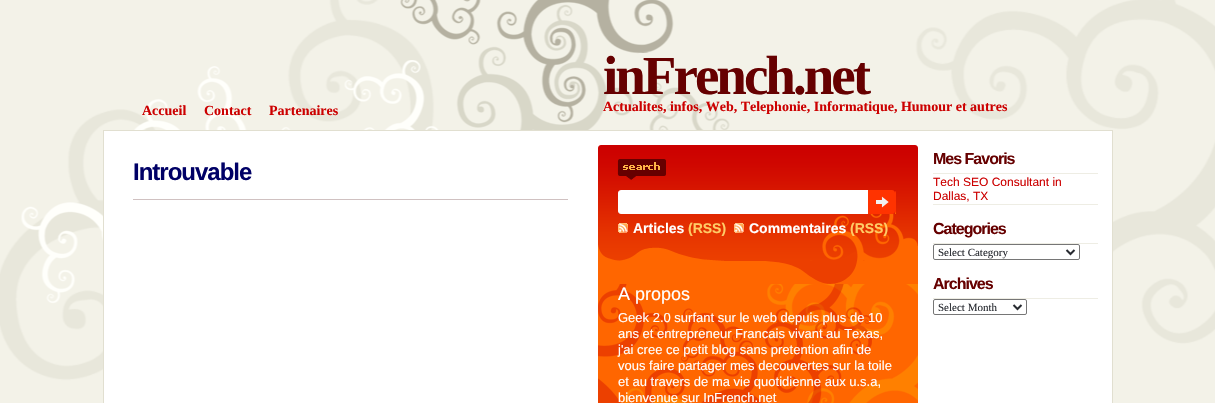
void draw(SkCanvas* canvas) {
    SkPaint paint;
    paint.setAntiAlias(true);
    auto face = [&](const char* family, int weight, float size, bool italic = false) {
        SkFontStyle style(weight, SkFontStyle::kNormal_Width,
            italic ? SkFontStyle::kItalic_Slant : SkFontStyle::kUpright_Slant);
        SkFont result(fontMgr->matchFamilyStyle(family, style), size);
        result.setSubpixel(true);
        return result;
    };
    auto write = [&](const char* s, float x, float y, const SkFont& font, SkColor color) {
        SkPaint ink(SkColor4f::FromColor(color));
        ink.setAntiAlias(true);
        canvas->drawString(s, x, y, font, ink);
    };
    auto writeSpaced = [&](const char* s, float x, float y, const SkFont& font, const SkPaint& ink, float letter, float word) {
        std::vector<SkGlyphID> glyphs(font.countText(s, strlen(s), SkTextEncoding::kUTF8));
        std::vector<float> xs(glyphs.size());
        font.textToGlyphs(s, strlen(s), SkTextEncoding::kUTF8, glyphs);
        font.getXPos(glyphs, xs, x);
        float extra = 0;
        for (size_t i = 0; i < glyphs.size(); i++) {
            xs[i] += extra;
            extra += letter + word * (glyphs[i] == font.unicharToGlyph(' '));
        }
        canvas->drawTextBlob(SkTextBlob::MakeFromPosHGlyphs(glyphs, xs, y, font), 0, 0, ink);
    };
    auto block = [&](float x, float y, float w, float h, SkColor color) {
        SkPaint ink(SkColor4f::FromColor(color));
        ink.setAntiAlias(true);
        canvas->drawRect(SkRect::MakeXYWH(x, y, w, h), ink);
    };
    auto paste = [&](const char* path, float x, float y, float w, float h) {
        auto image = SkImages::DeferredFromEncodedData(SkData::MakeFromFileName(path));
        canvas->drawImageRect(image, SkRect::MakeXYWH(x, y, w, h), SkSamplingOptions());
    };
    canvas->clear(SkColorSetRGB(243, 242, 232));
    paste("pic1.png", 0, 0, 1215, 381);
    auto kFont1 = face("Liberation Serif", 700, 14);
    write("Accueil", 142, 115, kFont1, SkColorSetRGB(204, 0, 0));
    write("Contact", 204, 115, kFont1, SkColorSetRGB(204, 0, 0));
    write("Partenaires", 269, 115, kFont1, SkColorSetRGB(204, 0, 0));
    auto kFont2 = face("Liberation Serif", 700, 55);
    paint.setColor(SkColorSetRGB(102, 0, 0));
    writeSpaced("inFrench.net", 603, 94, kFont2, paint, -3, 0);
    write("Actualites, infos, Web, Telephonie, Informatique, Humour et autres", 603, 111, kFont1, SkColorSetRGB(204, 0, 0));
    paint.setColor(SK_ColorWHITE);
    canvas->drawRect(SkRect::MakeXYWH(103.5f, 130.5f, 1009, 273), paint);
    paint.setStyle(SkPaint::kStroke_Style);
    paint.setStrokeWidth(1);
    paint.setColor(SkColorSetRGB(225, 223, 208));
    canvas->drawRect(SkRect::MakeXYWH(103.5f, 130.5f, 1009, 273), paint);
    block(133, 199, 435, 1, SkColorSetRGB(208, 193, 193));
    auto kFont3 = face("Liberation Sans", 700, 24);
    paint.setStyle(SkPaint::kFill_Style);
    paint.setColor(SkColorSetRGB(0, 0, 102));
    writeSpaced("Introuvable", 133, 180, kFont3, paint, -1, 0);
    paste("pic2.png", 598, 145, 320, 139);
    paste("pic3.png", 618, 190, 278, 24);
    paste("pic4.png", 868, 190, 27, 24);
    paste("pic5.png", 618, 223, 10, 10);
    auto kFont4 = face("Liberation Sans", 700, 14);
    write("Articles", 633, 233, kFont4, SK_ColorWHITE);
    write("(RSS)", 688, 233, kFont4, SkColorSetRGB(255, 204, 102));
    paste("pic5.png", 734, 223, 10, 10);
    write("Commentaires", 749, 233, kFont4, SK_ColorWHITE);
    write("(RSS)", 850, 233, kFont4, SkColorSetRGB(255, 204, 102));
    paste("pic6.png", 598, 284, 320, 119);
    auto kFont5 = face("Liberation Sans", 400, 18);
    write("A propos", 618, 300, kFont5, SK_ColorWHITE);
    auto kFont6 = face("Liberation Sans", 400, 13);
    write("Geek 2.0 surfant sur le web depuis plus de 10", 618, 322, kFont6, SK_ColorWHITE);
    write("ans et entrepreneur Francais vivant au Texas,", 618, 338, kFont6, SK_ColorWHITE);
    write("j'ai cree ce petit blog sans pretention afin de", 618, 354, kFont6, SK_ColorWHITE);
    write("vous faire partager mes decouvertes sur la toile", 618, 370, kFont6, SK_ColorWHITE);
    write("et au travers de ma vie quotidienne aux u.s.a,", 618, 386, kFont6, SK_ColorWHITE);
    write("bienvenue sur InFrench.net", 618, 402, kFont6, SK_ColorWHITE);
    block(933, 173, 165, 1, SkColorSetRGB(238, 237, 228));
    auto kFont7 = face("Liberation Sans", 700, 16);
    paint.setColor(SkColorSetRGB(102, 0, 0));
    writeSpaced("Mes Favoris", 933, 164, kFont7, paint, -1, 0);
    block(933, 204, 165, 1, SkColorSetRGB(238, 237, 228));
    auto kFont8 = face("Liberation Sans", 400, 12);
    write("Tech SEO Consultant in", 933, 186, kFont8, SkColorSetRGB(204, 0, 0));
    write("Dallas, TX", 933, 200, kFont8, SkColorSetRGB(204, 0, 0));
    block(933, 243, 165, 1, SkColorSetRGB(238, 237, 228));
    writeSpaced("Categories", 933, 234, kFont7, paint, -1, 0);
    paint.setStyle(SkPaint::kStroke_Style);
    paint.setColor(SkColorSetRGB(118, 118, 118));
    canvas->drawRoundRect(SkRect::MakeXYWH(933.5f, 244.5f, 146, 15), 1.5f, 1.5f, paint);
    paint.setStrokeWidth(2);
    paint.setColor(SkColorSetRGB(40, 43, 49));
    canvas->drawPath(SkPathBuilder().moveTo(1066.5f, 250).lineTo(1070.5f, 254).lineTo(1074.5f, 250).detach(), paint);
    auto kFont9 = face("Liberation Serif", 400, 11);
    write("Select Category", 938, 256, kFont9, SkColorSetRGB(40, 43, 49));
    block(933, 298, 165, 1, SkColorSetRGB(238, 237, 228));
    paint.setStyle(SkPaint::kFill_Style);
    paint.setColor(SkColorSetRGB(102, 0, 0));
    writeSpaced("Archives", 933, 289, kFont7, paint, -1, 0);
    paint.setStyle(SkPaint::kStroke_Style);
    paint.setStrokeWidth(1);
    paint.setColor(SkColorSetRGB(118, 118, 118));
    canvas->drawRoundRect(SkRect::MakeXYWH(933.5f, 299.5f, 93, 15), 1.5f, 1.5f, paint);
    paint.setStrokeWidth(2);
    paint.setColor(SkColorSetRGB(40, 43, 49));
    canvas->drawPath(SkPathBuilder().moveTo(1013.5f, 305).lineTo(1017.5f, 309).lineTo(1021.5f, 305).detach(), paint);
    write("Select Month", 938, 311, kFont9, SkColorSetRGB(40, 43, 49));
}
